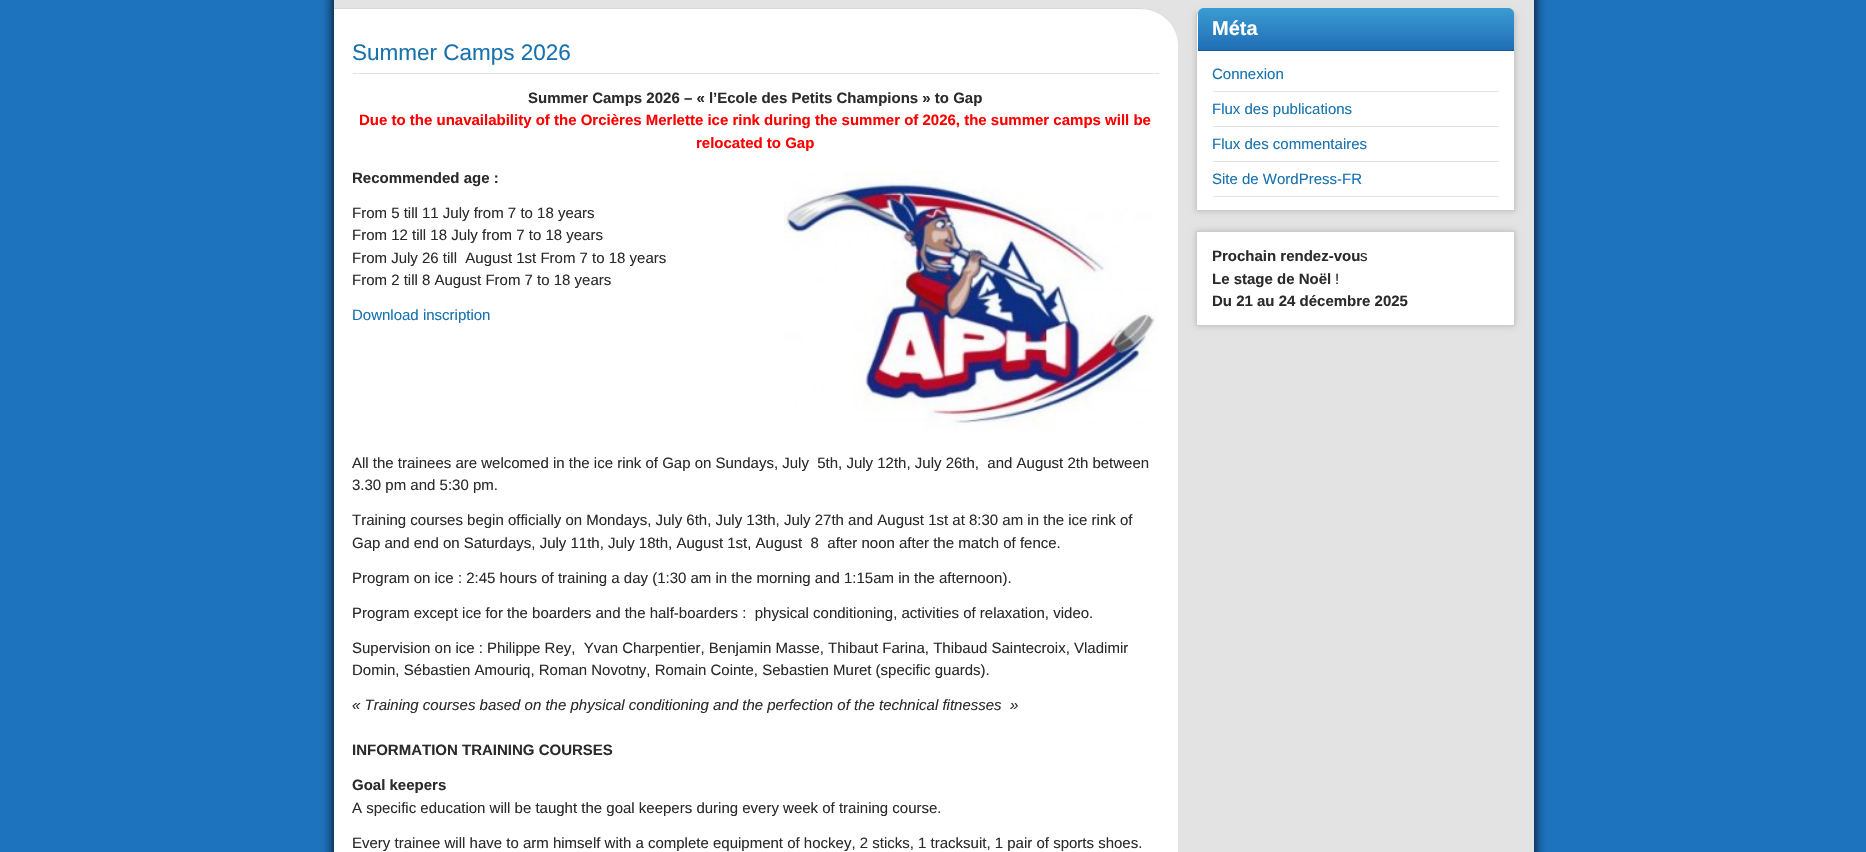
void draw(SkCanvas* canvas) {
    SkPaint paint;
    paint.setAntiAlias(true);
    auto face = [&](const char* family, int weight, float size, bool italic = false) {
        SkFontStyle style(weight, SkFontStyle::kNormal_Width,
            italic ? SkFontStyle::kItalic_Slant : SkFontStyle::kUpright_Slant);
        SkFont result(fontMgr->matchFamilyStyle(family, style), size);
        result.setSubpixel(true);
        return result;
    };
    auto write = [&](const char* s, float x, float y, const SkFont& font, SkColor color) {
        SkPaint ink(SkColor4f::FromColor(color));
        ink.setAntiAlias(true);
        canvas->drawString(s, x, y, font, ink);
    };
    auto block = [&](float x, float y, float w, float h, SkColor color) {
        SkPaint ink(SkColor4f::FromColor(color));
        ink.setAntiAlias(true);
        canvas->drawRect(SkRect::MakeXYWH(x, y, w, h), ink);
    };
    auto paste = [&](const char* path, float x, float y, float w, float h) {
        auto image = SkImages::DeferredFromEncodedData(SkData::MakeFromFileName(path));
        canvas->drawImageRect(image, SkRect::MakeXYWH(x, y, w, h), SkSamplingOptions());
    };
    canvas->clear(SkColorSetRGB(30, 115, 190));
    paint.setColor(SK_ColorBLACK);
    paint.setMaskFilter(SkMaskFilter::MakeBlur(kNormal_SkBlurStyle, 6));
    canvas->drawRect(SkRect::MakeXYWH(334, -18, 1200, 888), paint);
    paint.setMaskFilter(nullptr);
    block(334, 0, 1200, 852, SkColorSetRGB(227, 227, 227));
    paint.setColor(SK_ColorWHITE);
    canvas->drawPath(SkPathBuilder().moveTo(334, 8).lineTo(1140, 8).cubicTo(1161, 8, 1178, 25, 1178, 46).lineTo(1178, 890).lineTo(334, 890).close().detach(), paint);
    paint.setColor(SkColorSetRGB(216, 216, 216));
    canvas->drawPath(SkPathBuilder().moveTo(334, 8).lineTo(1140, 8).cubicTo(1159, 8, 1175, 21, 1178, 39).cubicTo(1175, 22, 1159, 9, 1140, 9).lineTo(334, 9).close().detach(), paint);
    block(353, 73, 806, 1, SkColorSetRGB(227, 227, 227));
    auto kFont1 = face("Liberation Sans", 400, 22.5f);
    write("Summer Camps 2026", 352, 60, kFont1, SkColorSetRGB(23, 114, 175));
    auto kFont2 = face("Liberation Sans", 700, 15);
    write("Summer Camps 2026 – « l’Ecole des Petits Champions » to Gap", 528, 103, kFont2, SkColorSetRGB(44, 43, 43));
    write("Due to the unavailability of the Orcières Merlette ice rink during the summer of 2026, the summer camps will be", 359, 125, kFont2, SkColorSetRGB(255, 0, 0));
    write("relocated to Gap", 696, 148, kFont2, SkColorSetRGB(255, 0, 0));
    paste("pic1.png", 783, 171, 375, 260);
    write("Recommended age :", 352, 183, kFont2, SkColorSetRGB(44, 43, 43));
    auto kFont3 = face("Liberation Sans", 400, 15);
    write("From 5 till 11 July from 7 to 18 years", 352, 218, kFont3, SkColorSetRGB(44, 43, 43));
    write("From 12 till 18 July from 7 to 18 years", 352, 240, kFont3, SkColorSetRGB(44, 43, 43));
    write("From July 26 till  August 1st From 7 to 18 years", 352, 263, kFont3, SkColorSetRGB(44, 43, 43));
    write("From 2 till 8 August From 7 to 18 years", 352, 285, kFont3, SkColorSetRGB(44, 43, 43));
    write("Download inscription", 352, 320, kFont3, SkColorSetRGB(23, 114, 175));
    write("All the trainees are welcomed in the ice rink of Gap on Sundays, July  5th, July 12th, July 26th,  and August 2th between", 352, 468, kFont3, SkColorSetRGB(44, 43, 43));
    write("3.30 pm and 5:30 pm.", 352, 490, kFont3, SkColorSetRGB(44, 43, 43));
    write("Training courses begin officially on Mondays, July 6th, July 13th, July 27th and August 1st at 8:30 am in the ice rink of", 352, 525, kFont3, SkColorSetRGB(44, 43, 43));
    write("Gap and end on Saturdays, July 11th, July 18th, August 1st, August  8  after noon after the match of fence.", 352, 548, kFont3, SkColorSetRGB(44, 43, 43));
    write("Program on ice : 2:45 hours of training a day (1:30 am in the morning and 1:15am in the afternoon).", 352, 583, kFont3, SkColorSetRGB(44, 43, 43));
    write("Program except ice for the boarders and the half-boarders :  physical conditioning, activities of relaxation, video.", 352, 618, kFont3, SkColorSetRGB(44, 43, 43));
    write("Supervision on ice : Philippe Rey,  Yvan Charpentier, Benjamin Masse, Thibaut Farina, Thibaud Saintecroix, Vladimir", 352, 653, kFont3, SkColorSetRGB(44, 43, 43));
    write("Domin, Sébastien Amouriq, Roman Novotny, Romain Cointe, Sebastien Muret (specific guards).", 352, 675, kFont3, SkColorSetRGB(44, 43, 43));
    auto kFont4 = face("Liberation Sans", 400, 15, true);
    write("« Training courses based on the physical conditioning and the perfection of the technical fitnesses  »", 352, 710, kFont4, SkColorSetRGB(44, 43, 43));
    write("INFORMATION TRAINING COURSES", 352, 755, kFont2, SkColorSetRGB(44, 43, 43));
    write("Goal keepers", 352, 790, kFont2, SkColorSetRGB(44, 43, 43));
    write("A specific education will be taught the goal keepers during every week of training course.", 352, 813, kFont3, SkColorSetRGB(44, 43, 43));
    write("Every trainee will have to arm himself with a complete equipment of hockey, 2 sticks, 1 tracksuit, 1 pair of sports shoes.", 352, 848, kFont3, SkColorSetRGB(44, 43, 43));
    paint.setColor(SkColorSetRGB(187, 187, 187));
    paint.setMaskFilter(SkMaskFilter::MakeBlur(kNormal_SkBlurStyle, 3));
    canvas->drawRect(SkRect::MakeXYWH(1196, 13, 319, 198), paint);
    paint.setMaskFilter(nullptr);
    paint.setColor(SK_ColorWHITE);
    canvas->drawRect(SkRect::MakeXYWH(1196.5f, 13.5f, 318, 197), paint);
    paint.setStyle(SkPaint::kStroke_Style);
    paint.setStrokeWidth(1);
    paint.setColor(SkColorSetRGB(204, 204, 204));
    canvas->drawRect(SkRect::MakeXYWH(1196.5f, 13.5f, 318, 197), paint);
    paint.setStyle(SkPaint::kFill_Style);
    {
        const SkColor colors[] = {SkColorSetRGB(60, 156, 210), SkColorSetRGB(31, 110, 182)};
        const float stops[] = {0, 1};
        const SkPoint ends[] = {{1356, 7.5f}, {1356, 50}};
        paint.setShader(SkGradientShader::MakeLinear(ends, colors, stops, 2, SkTileMode::kClamp));
        paint.setAlpha(255);
    }
    canvas->drawPath(SkPathBuilder().moveTo(1204, 8).lineTo(1508, 8).cubicTo(1511.5f, 8, 1514, 10.5f, 1514, 14).lineTo(1514, 50).lineTo(1198, 50).lineTo(1198, 14).cubicTo(1198, 10.5f, 1200.5f, 8, 1204, 8).close().detach(), paint);
    block(1198, 50, 316, 1, SkColorSetRGB(25, 83, 146));
    auto kFont5 = face("Liberation Sans", 700, 20);
    write("Méta", 1212, 35, kFont5, SK_ColorWHITE);
    block(1213, 91, 286, 1, SkColorSetRGB(227, 227, 227));
    write("Connexion", 1212, 79, kFont3, SkColorSetRGB(23, 114, 175));
    block(1213, 126, 286, 1, SkColorSetRGB(227, 227, 227));
    write("Flux des publications", 1212, 114, kFont3, SkColorSetRGB(23, 114, 175));
    block(1213, 161, 286, 1, SkColorSetRGB(227, 227, 227));
    write("Flux des commentaires", 1212, 149, kFont3, SkColorSetRGB(23, 114, 175));
    block(1213, 196, 286, 1, SkColorSetRGB(227, 227, 227));
    write("Site de WordPress-FR", 1212, 184, kFont3, SkColorSetRGB(23, 114, 175));
    paint.setShader(nullptr);
    paint.setColor(SkColorSetRGB(187, 187, 187));
    paint.setMaskFilter(SkMaskFilter::MakeBlur(kNormal_SkBlurStyle, 3));
    canvas->drawRect(SkRect::MakeXYWH(1196, 231, 319, 95), paint);
    paint.setMaskFilter(nullptr);
    paint.setColor(SK_ColorWHITE);
    canvas->drawRect(SkRect::MakeXYWH(1196.5f, 231.5f, 318, 94), paint);
    paint.setStyle(SkPaint::kStroke_Style);
    paint.setColor(SkColorSetRGB(204, 204, 204));
    canvas->drawRect(SkRect::MakeXYWH(1196.5f, 231.5f, 318, 94), paint);
    write("Prochain rendez-vou", 1212, 261, kFont2, SkColorSetRGB(44, 43, 43));
    write("s", 1360, 261, kFont3, SkColorSetRGB(44, 43, 43));
    write("Le stage de Noël", 1212, 284, kFont2, SkColorSetRGB(44, 43, 43));
    write("!", 1335, 284, kFont3, SkColorSetRGB(44, 43, 43));
    write("Du 21 au 24 décembre 2025", 1212, 306, kFont2, SkColorSetRGB(44, 43, 43));
}
